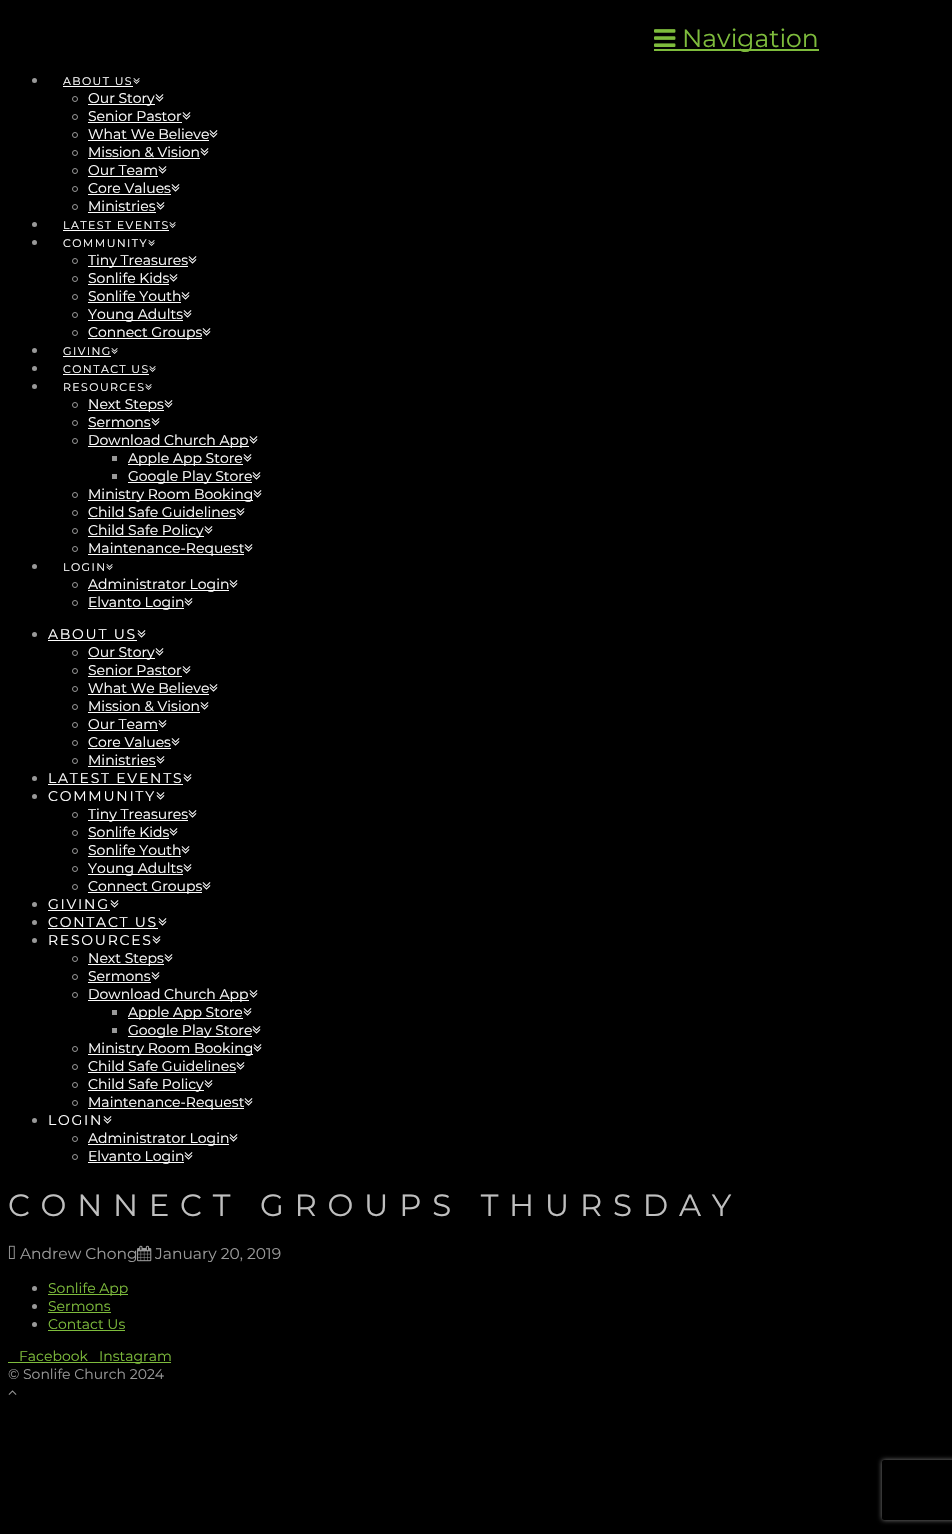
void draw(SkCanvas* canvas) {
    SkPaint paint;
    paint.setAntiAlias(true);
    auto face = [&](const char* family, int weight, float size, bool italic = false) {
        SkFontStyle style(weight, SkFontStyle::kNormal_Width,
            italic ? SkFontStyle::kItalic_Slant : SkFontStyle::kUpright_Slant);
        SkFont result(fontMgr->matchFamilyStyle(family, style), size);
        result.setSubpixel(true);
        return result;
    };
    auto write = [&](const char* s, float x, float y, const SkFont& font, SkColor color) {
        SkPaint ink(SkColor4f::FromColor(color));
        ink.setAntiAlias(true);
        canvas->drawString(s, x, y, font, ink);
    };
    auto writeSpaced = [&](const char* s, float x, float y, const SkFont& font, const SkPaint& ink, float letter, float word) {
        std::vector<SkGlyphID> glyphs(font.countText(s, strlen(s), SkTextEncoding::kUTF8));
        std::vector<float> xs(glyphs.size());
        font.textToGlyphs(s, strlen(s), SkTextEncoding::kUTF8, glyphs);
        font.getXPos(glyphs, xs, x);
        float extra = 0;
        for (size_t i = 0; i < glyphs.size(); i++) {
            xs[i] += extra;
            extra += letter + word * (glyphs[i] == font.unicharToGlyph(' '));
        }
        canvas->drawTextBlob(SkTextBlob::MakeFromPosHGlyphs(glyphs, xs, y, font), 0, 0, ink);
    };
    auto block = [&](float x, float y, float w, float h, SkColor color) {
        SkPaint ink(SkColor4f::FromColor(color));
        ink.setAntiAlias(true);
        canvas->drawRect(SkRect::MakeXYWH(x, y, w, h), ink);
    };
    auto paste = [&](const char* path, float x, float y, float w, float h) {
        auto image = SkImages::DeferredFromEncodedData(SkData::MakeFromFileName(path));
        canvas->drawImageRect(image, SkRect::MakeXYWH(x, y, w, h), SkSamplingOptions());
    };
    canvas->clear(SK_ColorBLACK);
    block(654, 49, 165, 2, SkColorSetRGB(126, 188, 60));
    auto kFont1 = face("Montserrat", 400, 25);
    write("Navigation", 682, 47, kFont1, SkColorSetRGB(126, 188, 60));
    paste("pic1.png", 654, 29, 22, 18);
    paint.setColor(SkColorSetRGB(153, 153, 153));
    canvas->drawCircle(34.5f, 80.5f, 2.5f, paint);
    auto kFont2 = face("Montserrat", 400, 11);
    paint.setColor(SK_ColorWHITE);
    writeSpaced("ABOUT US", 63, 85, kFont2, paint, 1.4f, 0);
    block(63, 86, 70, 1, SK_ColorWHITE);
    paste("pic2.png", 133, 78, 7, 6);
    paint.setStyle(SkPaint::kStroke_Style);
    paint.setStrokeWidth(1);
    paint.setColor(SkColorSetRGB(153, 153, 153));
    canvas->drawCircle(75, 99, 2.5f, paint);
    block(88, 104, 67, 1, SK_ColorWHITE);
    auto kFont3 = face("Montserrat", 400, 14);
    write("Our Story", 88, 103, kFont3, SK_ColorWHITE);
    paste("pic3.png", 155, 94, 9, 8);
    canvas->drawCircle(75, 117, 2.5f, paint);
    write("Senior Pastor", 88, 121, kFont3, SK_ColorWHITE);
    block(88, 122, 94, 1, SK_ColorWHITE);
    paste("pic3.png", 182, 112, 9, 8);
    canvas->drawCircle(75, 135, 2.5f, paint);
    write("What We Believe", 88, 139, kFont3, SK_ColorWHITE);
    block(88, 140, 121, 1, SK_ColorWHITE);
    paste("pic3.png", 209, 130, 9, 8);
    canvas->drawCircle(75, 153, 2.5f, paint);
    write("Mission & Vision", 88, 157, kFont3, SK_ColorWHITE);
    block(88, 158, 112, 1, SK_ColorWHITE);
    paste("pic3.png", 200, 148, 9, 8);
    canvas->drawCircle(75, 171, 2.5f, paint);
    write("Our Team", 88, 175, kFont3, SK_ColorWHITE);
    block(88, 176, 70, 1, SK_ColorWHITE);
    paste("pic3.png", 158, 166, 9, 8);
    canvas->drawCircle(75, 189, 2.5f, paint);
    write("Core Values", 88, 193, kFont3, SK_ColorWHITE);
    block(88, 194, 83, 1, SK_ColorWHITE);
    paste("pic3.png", 171, 184, 9, 8);
    canvas->drawCircle(75, 207, 2.5f, paint);
    write("Ministries", 88, 211, kFont3, SK_ColorWHITE);
    block(88, 212, 68, 1, SK_ColorWHITE);
    paste("pic3.png", 156, 202, 9, 8);
    paint.setStyle(SkPaint::kFill_Style);
    canvas->drawCircle(34.5f, 224.5f, 2.5f, paint);
    paint.setColor(SK_ColorWHITE);
    writeSpaced("LATEST EVENTS", 63, 229, kFont2, paint, 1.4f, 0);
    block(63, 230, 106, 1, SK_ColorWHITE);
    paste("pic2.png", 169, 222, 7, 6);
    paint.setColor(SkColorSetRGB(153, 153, 153));
    canvas->drawCircle(34.5f, 242.5f, 2.5f, paint);
    paint.setColor(SK_ColorWHITE);
    writeSpaced("COMMUNITY", 63, 247, kFont2, paint, 1.4f, 0);
    paste("pic2.png", 148, 240, 7, 6);
    paint.setStyle(SkPaint::kStroke_Style);
    paint.setColor(SkColorSetRGB(153, 153, 153));
    canvas->drawCircle(75, 261, 2.5f, paint);
    block(88, 266, 100, 1, SK_ColorWHITE);
    write("Tiny Treasures", 88, 265, kFont3, SK_ColorWHITE);
    paste("pic3.png", 188, 256, 9, 8);
    canvas->drawCircle(75, 279, 2.5f, paint);
    write("Sonlife Kids", 88, 283, kFont3, SK_ColorWHITE);
    block(88, 284, 81, 1, SK_ColorWHITE);
    paste("pic3.png", 169, 274, 9, 8);
    canvas->drawCircle(75, 297, 2.5f, paint);
    write("Sonlife Youth", 88, 301, kFont3, SK_ColorWHITE);
    block(88, 302, 93, 1, SK_ColorWHITE);
    paste("pic3.png", 181, 292, 9, 8);
    canvas->drawCircle(75, 315, 2.5f, paint);
    block(88, 320, 95, 1, SK_ColorWHITE);
    write("Young Adults", 88, 319, kFont3, SK_ColorWHITE);
    paste("pic3.png", 183, 310, 9, 8);
    canvas->drawCircle(75, 333, 2.5f, paint);
    block(88, 338, 114, 1, SK_ColorWHITE);
    write("Connect Groups", 88, 337, kFont3, SK_ColorWHITE);
    paste("pic3.png", 202, 328, 9, 8);
    paint.setStyle(SkPaint::kFill_Style);
    canvas->drawCircle(34.5f, 350.5f, 2.5f, paint);
    paint.setColor(SK_ColorWHITE);
    writeSpaced("GIVING", 63, 355, kFont2, paint, 1.4f, 0);
    block(63, 356, 48, 1, SK_ColorWHITE);
    paste("pic2.png", 111, 348, 7, 6);
    paint.setColor(SkColorSetRGB(153, 153, 153));
    canvas->drawCircle(34.5f, 368.5f, 2.5f, paint);
    paint.setColor(SK_ColorWHITE);
    writeSpaced("CONTACT US", 63, 373, kFont2, paint, 1.4f, 0);
    block(63, 374, 86, 1, SK_ColorWHITE);
    paste("pic2.png", 149, 366, 7, 6);
    paint.setColor(SkColorSetRGB(153, 153, 153));
    canvas->drawCircle(34.5f, 386.5f, 2.5f, paint);
    paint.setColor(SK_ColorWHITE);
    writeSpaced("RESOURCES", 63, 391, kFont2, paint, 1.4f, 0);
    paste("pic2.png", 145, 384, 7, 6);
    paint.setStyle(SkPaint::kStroke_Style);
    paint.setColor(SkColorSetRGB(153, 153, 153));
    canvas->drawCircle(75, 405, 2.5f, paint);
    block(88, 410, 76, 1, SK_ColorWHITE);
    write("Next Steps", 88, 409, kFont3, SK_ColorWHITE);
    paste("pic3.png", 164, 400, 9, 8);
    canvas->drawCircle(75, 423, 2.5f, paint);
    write("Sermons", 88, 427, kFont3, SK_ColorWHITE);
    block(88, 428, 63, 1, SK_ColorWHITE);
    paste("pic3.png", 151, 418, 9, 8);
    canvas->drawCircle(75, 441, 2.5f, paint);
    block(88, 446, 161, 1, SK_ColorWHITE);
    write("Download Church App", 88, 445, kFont3, SK_ColorWHITE);
    paste("pic3.png", 249, 436, 9, 8);
    block(112, 456, 5, 5, SkColorSetRGB(153, 153, 153));
    block(128, 464, 115, 1, SK_ColorWHITE);
    write("Apple App Store", 128, 463, kFont3, SK_ColorWHITE);
    paste("pic3.png", 243, 454, 9, 8);
    block(112, 474, 5, 5, SkColorSetRGB(153, 153, 153));
    block(128, 482, 124, 1, SK_ColorWHITE);
    write("Google Play Store", 128, 481, kFont3, SK_ColorWHITE);
    paste("pic3.png", 252, 472, 9, 8);
    canvas->drawCircle(75, 495, 2.5f, paint);
    block(88, 500, 165, 1, SK_ColorWHITE);
    write("Ministry Room Booking", 88, 499, kFont3, SK_ColorWHITE);
    paste("pic3.png", 253, 490, 9, 8);
    canvas->drawCircle(75, 513, 2.5f, paint);
    write("Child Safe Guidelines", 88, 517, kFont3, SK_ColorWHITE);
    block(88, 518, 148, 1, SK_ColorWHITE);
    paste("pic3.png", 236, 508, 9, 8);
    canvas->drawCircle(75, 531, 2.5f, paint);
    block(88, 536, 116, 1, SK_ColorWHITE);
    write("Child Safe Policy", 88, 535, kFont3, SK_ColorWHITE);
    paste("pic3.png", 204, 526, 9, 8);
    canvas->drawCircle(75, 549, 2.5f, paint);
    block(88, 554, 156, 1, SK_ColorWHITE);
    write("Maintenance-Request", 88, 553, kFont3, SK_ColorWHITE);
    paste("pic3.png", 244, 544, 9, 8);
    paint.setStyle(SkPaint::kFill_Style);
    canvas->drawCircle(34.5f, 566.5f, 2.5f, paint);
    paint.setColor(SK_ColorWHITE);
    writeSpaced("LOGIN", 63, 571, kFont2, paint, 1.4f, 0);
    paste("pic2.png", 106, 564, 7, 6);
    paint.setStyle(SkPaint::kStroke_Style);
    paint.setColor(SkColorSetRGB(153, 153, 153));
    canvas->drawCircle(75, 585, 2.5f, paint);
    block(88, 590, 141, 1, SK_ColorWHITE);
    write("Administrator Login", 88, 589, kFont3, SK_ColorWHITE);
    paste("pic3.png", 229, 580, 9, 8);
    canvas->drawCircle(75, 603, 2.5f, paint);
    block(88, 608, 96, 1, SK_ColorWHITE);
    write("Elvanto Login", 88, 607, kFont3, SK_ColorWHITE);
    paste("pic3.png", 184, 598, 9, 8);
    paint.setStyle(SkPaint::kFill_Style);
    canvas->drawCircle(34.5f, 634.5f, 2.5f, paint);
    paint.setColor(SK_ColorWHITE);
    writeSpaced("ABOUT US", 48, 639, kFont3, paint, 1.75f, 0);
    block(48, 640, 89, 1, SK_ColorWHITE);
    paste("pic3.png", 137, 630, 9, 8);
    paint.setStyle(SkPaint::kStroke_Style);
    paint.setColor(SkColorSetRGB(153, 153, 153));
    canvas->drawCircle(75, 653, 2.5f, paint);
    block(88, 658, 67, 1, SK_ColorWHITE);
    write("Our Story", 88, 657, kFont3, SK_ColorWHITE);
    paste("pic3.png", 155, 648, 9, 8);
    canvas->drawCircle(75, 671, 2.5f, paint);
    write("Senior Pastor", 88, 675, kFont3, SK_ColorWHITE);
    block(88, 676, 94, 1, SK_ColorWHITE);
    paste("pic3.png", 182, 666, 9, 8);
    canvas->drawCircle(75, 689, 2.5f, paint);
    write("What We Believe", 88, 693, kFont3, SK_ColorWHITE);
    block(88, 694, 121, 1, SK_ColorWHITE);
    paste("pic3.png", 209, 684, 9, 8);
    canvas->drawCircle(75, 707, 2.5f, paint);
    write("Mission & Vision", 88, 711, kFont3, SK_ColorWHITE);
    block(88, 712, 112, 1, SK_ColorWHITE);
    paste("pic3.png", 200, 702, 9, 8);
    canvas->drawCircle(75, 725, 2.5f, paint);
    write("Our Team", 88, 729, kFont3, SK_ColorWHITE);
    block(88, 730, 70, 1, SK_ColorWHITE);
    paste("pic3.png", 158, 720, 9, 8);
    canvas->drawCircle(75, 743, 2.5f, paint);
    write("Core Values", 88, 747, kFont3, SK_ColorWHITE);
    block(88, 748, 83, 1, SK_ColorWHITE);
    paste("pic3.png", 171, 738, 9, 8);
    canvas->drawCircle(75, 761, 2.5f, paint);
    write("Ministries", 88, 765, kFont3, SK_ColorWHITE);
    block(88, 766, 68, 1, SK_ColorWHITE);
    paste("pic3.png", 156, 756, 9, 8);
    paint.setStyle(SkPaint::kFill_Style);
    canvas->drawCircle(34.5f, 778.5f, 2.5f, paint);
    paint.setColor(SK_ColorWHITE);
    writeSpaced("LATEST EVENTS", 48, 783, kFont3, paint, 1.75f, 0);
    block(48, 784, 135, 1, SK_ColorWHITE);
    paste("pic3.png", 183, 774, 9, 8);
    paint.setColor(SkColorSetRGB(153, 153, 153));
    canvas->drawCircle(34.5f, 796.5f, 2.5f, paint);
    paint.setColor(SK_ColorWHITE);
    writeSpaced("COMMUNITY", 48, 801, kFont3, paint, 1.75f, 0);
    paste("pic3.png", 156, 792, 9, 8);
    paint.setStyle(SkPaint::kStroke_Style);
    paint.setColor(SkColorSetRGB(153, 153, 153));
    canvas->drawCircle(75, 815, 2.5f, paint);
    block(88, 820, 100, 1, SK_ColorWHITE);
    write("Tiny Treasures", 88, 819, kFont3, SK_ColorWHITE);
    paste("pic3.png", 188, 810, 9, 8);
    canvas->drawCircle(75, 833, 2.5f, paint);
    write("Sonlife Kids", 88, 837, kFont3, SK_ColorWHITE);
    block(88, 838, 81, 1, SK_ColorWHITE);
    paste("pic3.png", 169, 828, 9, 8);
    canvas->drawCircle(75, 851, 2.5f, paint);
    write("Sonlife Youth", 88, 855, kFont3, SK_ColorWHITE);
    block(88, 856, 93, 1, SK_ColorWHITE);
    paste("pic3.png", 181, 846, 9, 8);
    canvas->drawCircle(75, 869, 2.5f, paint);
    block(88, 874, 95, 1, SK_ColorWHITE);
    write("Young Adults", 88, 873, kFont3, SK_ColorWHITE);
    paste("pic3.png", 183, 864, 9, 8);
    canvas->drawCircle(75, 887, 2.5f, paint);
    block(88, 892, 114, 1, SK_ColorWHITE);
    write("Connect Groups", 88, 891, kFont3, SK_ColorWHITE);
    paste("pic3.png", 202, 882, 9, 8);
    paint.setStyle(SkPaint::kFill_Style);
    canvas->drawCircle(34.5f, 904.5f, 2.5f, paint);
    paint.setColor(SK_ColorWHITE);
    writeSpaced("GIVING", 48, 909, kFont3, paint, 1.75f, 0);
    block(48, 910, 62, 1, SK_ColorWHITE);
    paste("pic3.png", 110, 900, 9, 8);
    paint.setColor(SkColorSetRGB(153, 153, 153));
    canvas->drawCircle(34.5f, 922.5f, 2.5f, paint);
    paint.setColor(SK_ColorWHITE);
    writeSpaced("CONTACT US", 48, 927, kFont3, paint, 1.75f, 0);
    block(48, 928, 110, 1, SK_ColorWHITE);
    paste("pic3.png", 158, 918, 9, 8);
    paint.setColor(SkColorSetRGB(153, 153, 153));
    canvas->drawCircle(34.5f, 940.5f, 2.5f, paint);
    paint.setColor(SK_ColorWHITE);
    writeSpaced("RESOURCES", 48, 945, kFont3, paint, 1.75f, 0);
    paste("pic3.png", 152, 936, 9, 8);
    paint.setStyle(SkPaint::kStroke_Style);
    paint.setColor(SkColorSetRGB(153, 153, 153));
    canvas->drawCircle(75, 959, 2.5f, paint);
    block(88, 964, 76, 1, SK_ColorWHITE);
    write("Next Steps", 88, 963, kFont3, SK_ColorWHITE);
    paste("pic3.png", 164, 954, 9, 8);
    canvas->drawCircle(75, 977, 2.5f, paint);
    write("Sermons", 88, 981, kFont3, SK_ColorWHITE);
    block(88, 982, 63, 1, SK_ColorWHITE);
    paste("pic3.png", 151, 972, 9, 8);
    canvas->drawCircle(75, 995, 2.5f, paint);
    block(88, 1000, 161, 1, SK_ColorWHITE);
    write("Download Church App", 88, 999, kFont3, SK_ColorWHITE);
    paste("pic3.png", 249, 990, 9, 8);
    block(112, 1010, 5, 5, SkColorSetRGB(153, 153, 153));
    block(128, 1018, 115, 1, SK_ColorWHITE);
    write("Apple App Store", 128, 1017, kFont3, SK_ColorWHITE);
    paste("pic3.png", 243, 1008, 9, 8);
    block(112, 1028, 5, 5, SkColorSetRGB(153, 153, 153));
    block(128, 1036, 124, 1, SK_ColorWHITE);
    write("Google Play Store", 128, 1035, kFont3, SK_ColorWHITE);
    paste("pic3.png", 252, 1026, 9, 8);
    canvas->drawCircle(75, 1049, 2.5f, paint);
    block(88, 1054, 165, 1, SK_ColorWHITE);
    write("Ministry Room Booking", 88, 1053, kFont3, SK_ColorWHITE);
    paste("pic3.png", 253, 1044, 9, 8);
    canvas->drawCircle(75, 1067, 2.5f, paint);
    write("Child Safe Guidelines", 88, 1071, kFont3, SK_ColorWHITE);
    block(88, 1072, 148, 1, SK_ColorWHITE);
    paste("pic3.png", 236, 1062, 9, 8);
    canvas->drawCircle(75, 1085, 2.5f, paint);
    block(88, 1090, 116, 1, SK_ColorWHITE);
    write("Child Safe Policy", 88, 1089, kFont3, SK_ColorWHITE);
    paste("pic3.png", 204, 1080, 9, 8);
    canvas->drawCircle(75, 1103, 2.5f, paint);
    block(88, 1108, 156, 1, SK_ColorWHITE);
    write("Maintenance-Request", 88, 1107, kFont3, SK_ColorWHITE);
    paste("pic3.png", 244, 1098, 9, 8);
    paint.setStyle(SkPaint::kFill_Style);
    canvas->drawCircle(34.5f, 1120.5f, 2.5f, paint);
    paint.setColor(SK_ColorWHITE);
    writeSpaced("LOGIN", 48, 1125, kFont3, paint, 1.75f, 0);
    paste("pic3.png", 103, 1116, 9, 8);
    paint.setStyle(SkPaint::kStroke_Style);
    paint.setColor(SkColorSetRGB(153, 153, 153));
    canvas->drawCircle(75, 1139, 2.5f, paint);
    block(88, 1144, 141, 1, SK_ColorWHITE);
    write("Administrator Login", 88, 1143, kFont3, SK_ColorWHITE);
    paste("pic3.png", 229, 1134, 9, 8);
    canvas->drawCircle(75, 1157, 2.5f, paint);
    block(88, 1162, 96, 1, SK_ColorWHITE);
    write("Elvanto Login", 88, 1161, kFont3, SK_ColorWHITE);
    paste("pic3.png", 184, 1152, 9, 8);
    auto kFont4 = face("Montserrat", 400, 30.8f);
    paint.setStyle(SkPaint::kFill_Style);
    paint.setColor(SkColorSetRGB(191, 191, 191));
    writeSpaced("CONNECT GROUPS THURSDAY", 8, 1216, kFont4, paint, 10.75f, 0);
    paste("pic4.png", 8, 1245, 7, 14);
    auto kFont5 = face("Montserrat", 400, 15.5f);
    write("Andrew Chong", 20, 1259, kFont5, SkColorSetRGB(153, 153, 153));
    paste("pic5.png", 137, 1245, 15, 17);
    write("January 20, 2019", 155, 1259, kFont5, SkColorSetRGB(153, 153, 153));
    paint.setColor(SkColorSetRGB(153, 153, 153));
    canvas->drawCircle(34.5f, 1288.5f, 2.5f, paint);
    block(48, 1294, 80, 1, SkColorSetRGB(126, 188, 60));
    write("Sonlife App", 48, 1293, kFont3, SkColorSetRGB(126, 188, 60));
    canvas->drawCircle(34.5f, 1306.5f, 2.5f, paint);
    write("Sermons", 48, 1311, kFont3, SkColorSetRGB(126, 188, 60));
    block(48, 1312, 63, 1, SkColorSetRGB(126, 188, 60));
    canvas->drawCircle(34.5f, 1324.5f, 2.5f, paint);
    write("Contact Us", 48, 1329, kFont3, SkColorSetRGB(126, 188, 60));
    block(48, 1330, 77, 1, SkColorSetRGB(126, 188, 60));
    write("Facebook", 19, 1361, kFont3, SkColorSetRGB(126, 188, 60));
    block(8, 1362, 163, 1, SkColorSetRGB(126, 188, 60));
    write("Instagram", 99, 1361, kFont3, SkColorSetRGB(126, 188, 60));
    write("© Sonlife Church 2024", 8, 1379, kFont3, SkColorSetRGB(153, 153, 153));
    paste("pic6.png", 8, 1390, 9, 5);
    canvas->save();
    canvas->clipPath(SkPathBuilder(SkPathFillType::kEvenOdd).moveTo(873, 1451).lineTo(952, 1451).lineTo(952, 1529).lineTo(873, 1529).close().moveTo(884, 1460).lineTo(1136, 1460).cubicTo(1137, 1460, 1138, 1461, 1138, 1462).lineTo(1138, 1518).cubicTo(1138, 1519, 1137, 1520, 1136, 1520).lineTo(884, 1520).cubicTo(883, 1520, 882, 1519, 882, 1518).lineTo(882, 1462).cubicTo(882, 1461, 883, 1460, 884, 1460).close().detach(), true);
    paint.setColor(SkColorSetRGB(128, 128, 128));
    paint.setMaskFilter(SkMaskFilter::MakeBlur(kNormal_SkBlurStyle, 2.5f));
    canvas->drawRoundRect(SkRect::MakeXYWH(882, 1460, 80, 60), 2, 2, paint);
    paint.setMaskFilter(nullptr);
    canvas->restore();
}
